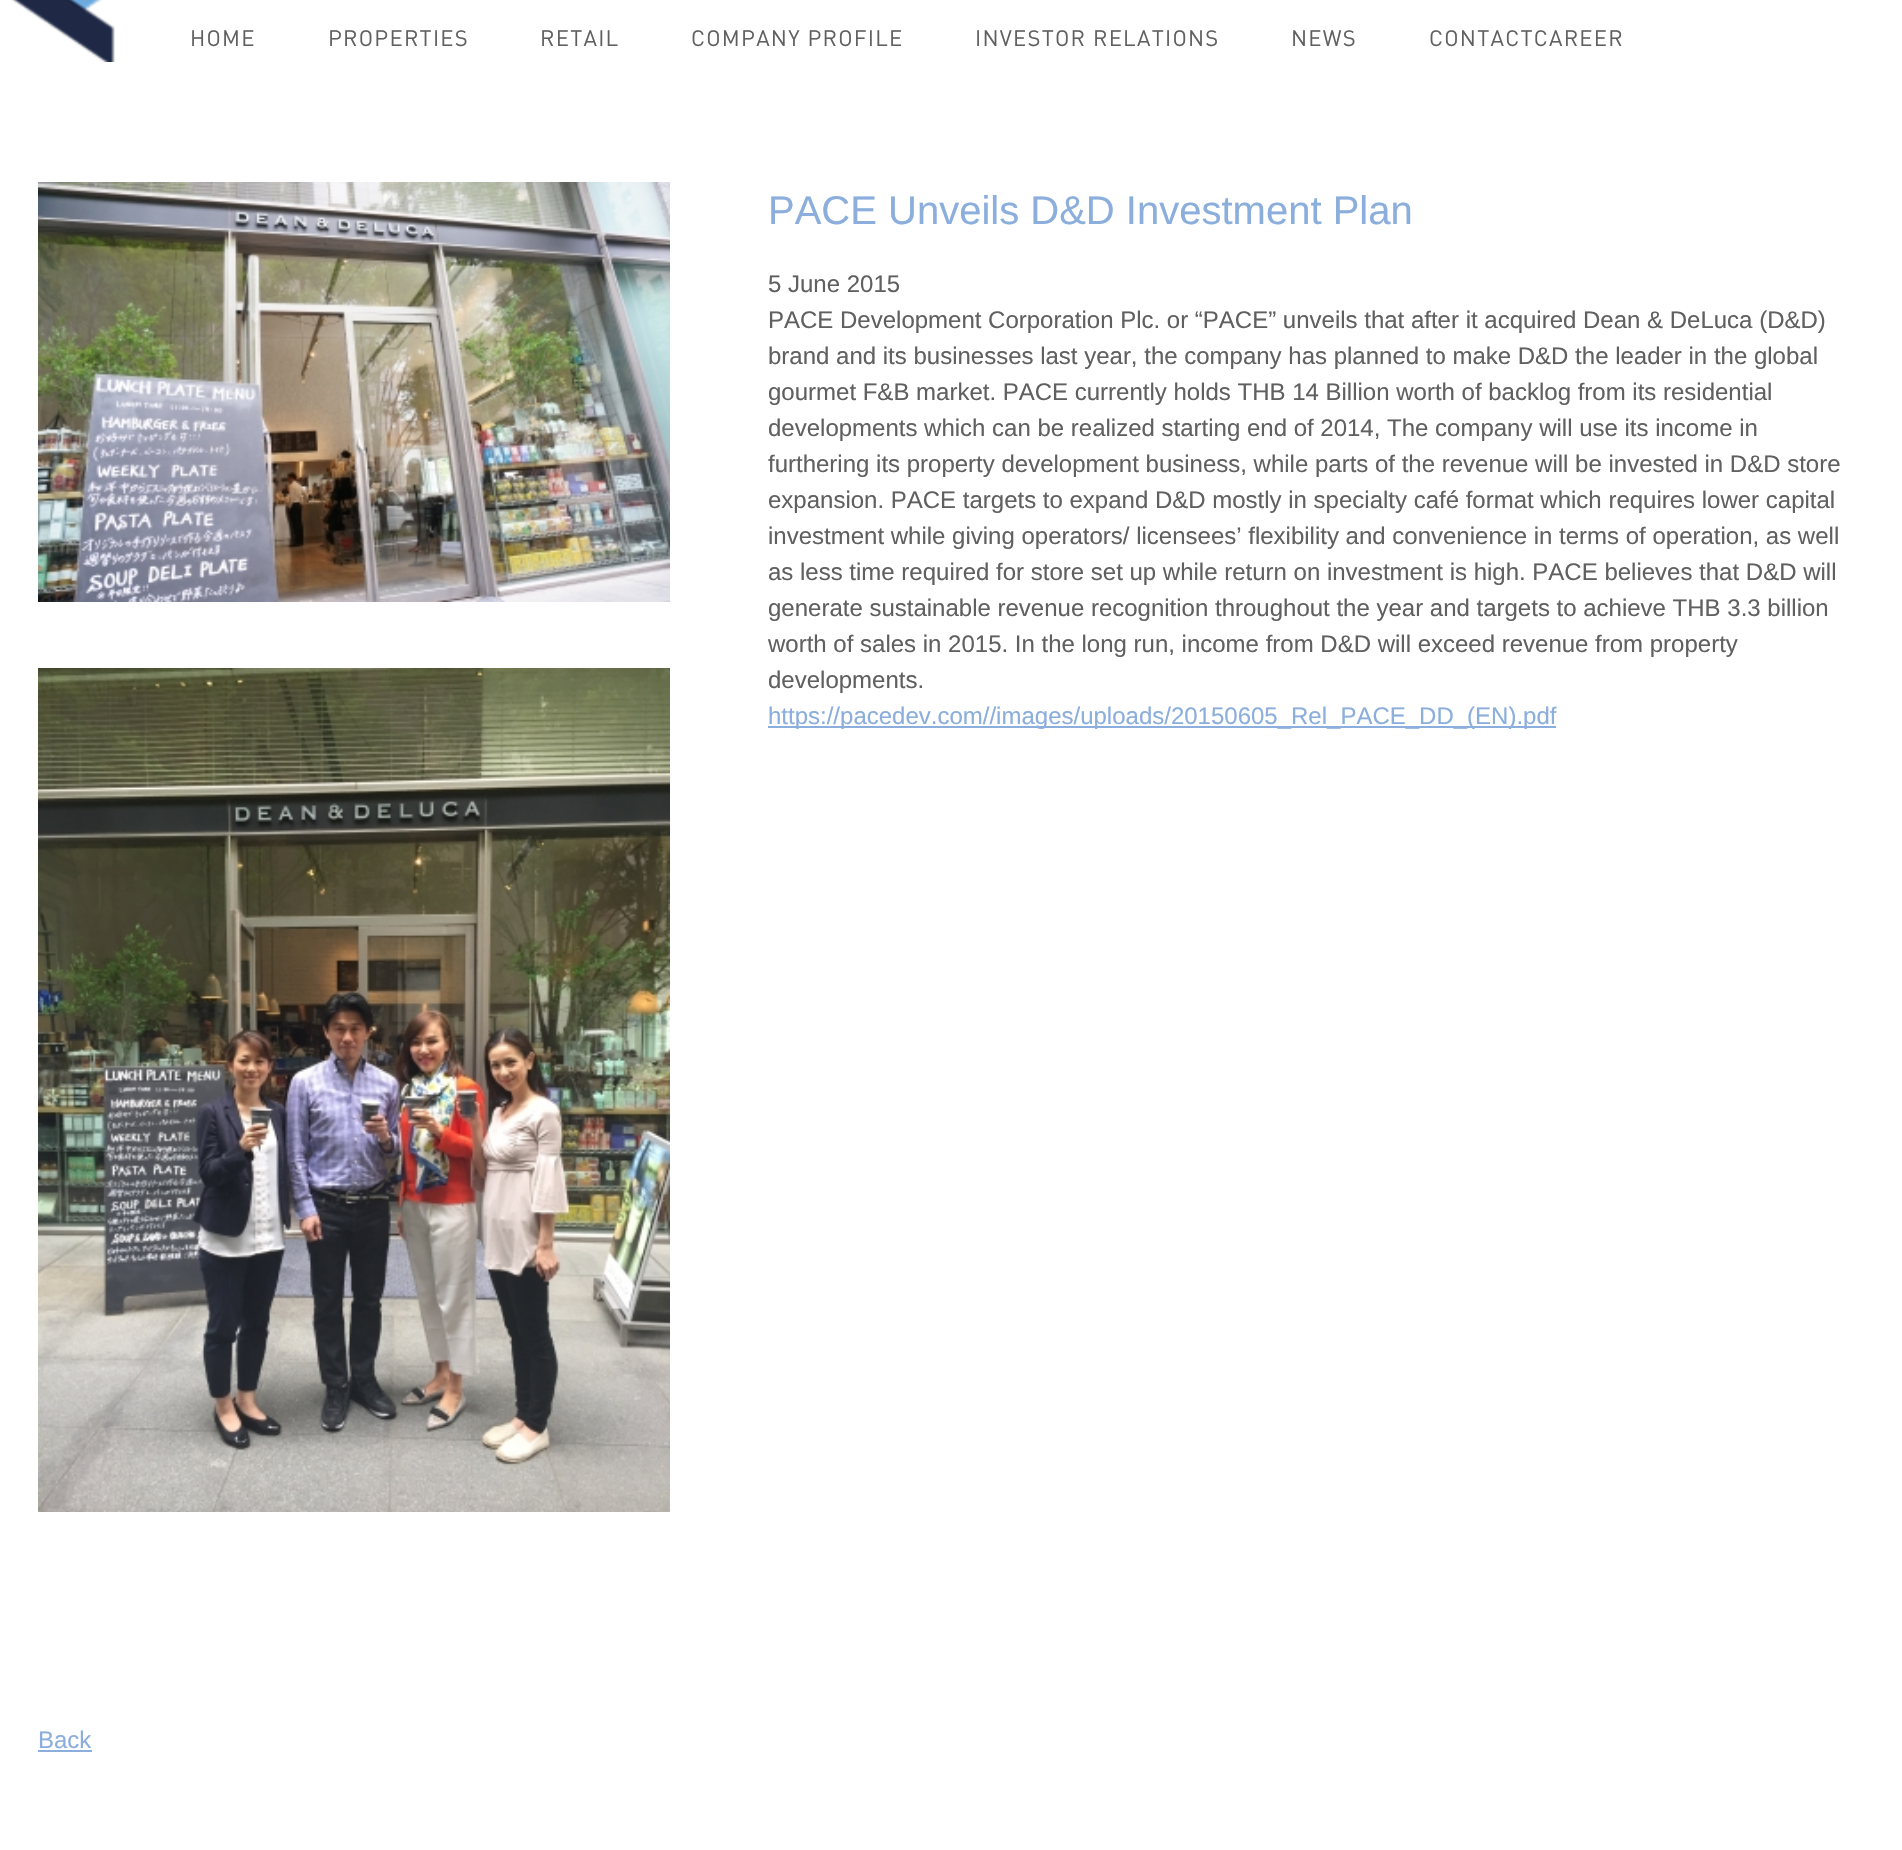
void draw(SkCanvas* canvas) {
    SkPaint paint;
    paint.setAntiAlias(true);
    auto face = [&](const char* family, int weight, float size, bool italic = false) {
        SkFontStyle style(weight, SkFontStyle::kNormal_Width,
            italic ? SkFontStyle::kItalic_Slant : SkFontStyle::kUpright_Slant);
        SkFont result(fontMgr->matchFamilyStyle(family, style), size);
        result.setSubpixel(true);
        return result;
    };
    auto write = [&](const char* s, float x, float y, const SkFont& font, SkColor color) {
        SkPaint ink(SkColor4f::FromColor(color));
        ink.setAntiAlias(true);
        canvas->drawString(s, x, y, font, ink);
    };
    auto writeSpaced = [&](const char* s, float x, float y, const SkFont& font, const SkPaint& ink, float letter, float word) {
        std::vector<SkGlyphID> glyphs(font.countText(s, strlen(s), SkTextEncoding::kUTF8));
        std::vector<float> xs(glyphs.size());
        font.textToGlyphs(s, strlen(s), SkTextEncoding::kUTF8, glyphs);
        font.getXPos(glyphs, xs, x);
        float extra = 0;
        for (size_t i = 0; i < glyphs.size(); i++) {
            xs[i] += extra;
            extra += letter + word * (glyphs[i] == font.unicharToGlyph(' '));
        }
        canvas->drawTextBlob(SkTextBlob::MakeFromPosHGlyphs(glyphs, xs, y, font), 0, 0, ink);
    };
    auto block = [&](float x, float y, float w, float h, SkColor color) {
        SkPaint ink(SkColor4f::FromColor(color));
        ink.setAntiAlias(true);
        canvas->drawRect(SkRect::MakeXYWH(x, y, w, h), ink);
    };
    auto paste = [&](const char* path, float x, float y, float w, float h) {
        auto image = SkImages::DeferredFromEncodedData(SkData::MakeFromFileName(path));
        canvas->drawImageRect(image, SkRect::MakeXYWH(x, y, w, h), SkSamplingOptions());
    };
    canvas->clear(SK_ColorWHITE);
    paste("pic1.png", 11, 0, 104, 62);
    auto kFont1 = face("DIN", 400, 22);
    paint.setColor(SkColorSetRGB(96, 96, 96));
    writeSpaced("HOME", 190, 46, kFont1, paint, 1.25f, 0);
    writeSpaced("PROPERTIES", 328, 46, kFont1, paint, 1.25f, 0);
    writeSpaced("RETAIL", 540, 46, kFont1, paint, 1.25f, 0);
    writeSpaced("COMPANY PROFILE", 691, 46, kFont1, paint, 1.25f, 0);
    writeSpaced("INVESTOR RELATIONS", 975, 46, kFont1, paint, 1.25f, 0);
    writeSpaced("NEWS", 1291, 46, kFont1, paint, 1.25f, 0);
    writeSpaced("CONTACTCAREER", 1429, 46, kFont1, paint, 1.25f, 0);
    auto kFont2 = face("Liberation Sans", 400, 40);
    write("PACE Unveils D&D Investment Plan", 768, 224, kFont2, SkColorSetRGB(139, 174, 220));
    auto kFont3 = face("Liberation Sans", 400, 24);
    write("5 June 2015", 768, 292, kFont3, SkColorSetRGB(96, 96, 96));
    write("PACE Development Corporation Plc. or “PACE” unveils that after it acquired Dean & DeLuca (D&D)", 768, 328, kFont3, SkColorSetRGB(96, 96, 96));
    write("brand and its businesses last year, the company has planned to make D&D the leader in the global", 768, 364, kFont3, SkColorSetRGB(96, 96, 96));
    write("gourmet F&B market. PACE currently holds THB 14 Billion worth of backlog from its residential", 768, 400, kFont3, SkColorSetRGB(96, 96, 96));
    write("developments which can be realized starting end of 2014, The company will use its income in", 768, 436, kFont3, SkColorSetRGB(96, 96, 96));
    write("furthering its property development business, while parts of the revenue will be invested in D&D store", 768, 472, kFont3, SkColorSetRGB(96, 96, 96));
    write("expansion. PACE targets to expand D&D mostly in specialty café format which requires lower capital", 768, 508, kFont3, SkColorSetRGB(96, 96, 96));
    write("investment while giving operators/ licensees’ flexibility and convenience in terms of operation, as well", 768, 544, kFont3, SkColorSetRGB(96, 96, 96));
    write("as less time required for store set up while return on investment is high. PACE believes that D&D will", 768, 580, kFont3, SkColorSetRGB(96, 96, 96));
    write("generate sustainable revenue recognition throughout the year and targets to achieve THB 3.3 billion", 768, 616, kFont3, SkColorSetRGB(96, 96, 96));
    write("worth of sales in 2015. In the long run, income from D&D will exceed revenue from property", 768, 652, kFont3, SkColorSetRGB(96, 96, 96));
    write("developments.", 768, 688, kFont3, SkColorSetRGB(96, 96, 96));
    block(768, 726, 788, 2, SkColorSetRGB(139, 174, 220));
    write("https://pacedev.com//images/uploads/20150605_Rel_PACE_DD_(EN).pdf", 768, 724, kFont3, SkColorSetRGB(139, 174, 220));
    paste("pic2.png", 38, 182, 632, 420);
    paste("pic3.png", 38, 668, 632, 844);
    write("Back", 38, 1748, kFont3, SkColorSetRGB(139, 174, 220));
    block(38, 1750, 54, 2, SkColorSetRGB(139, 174, 220));
}
